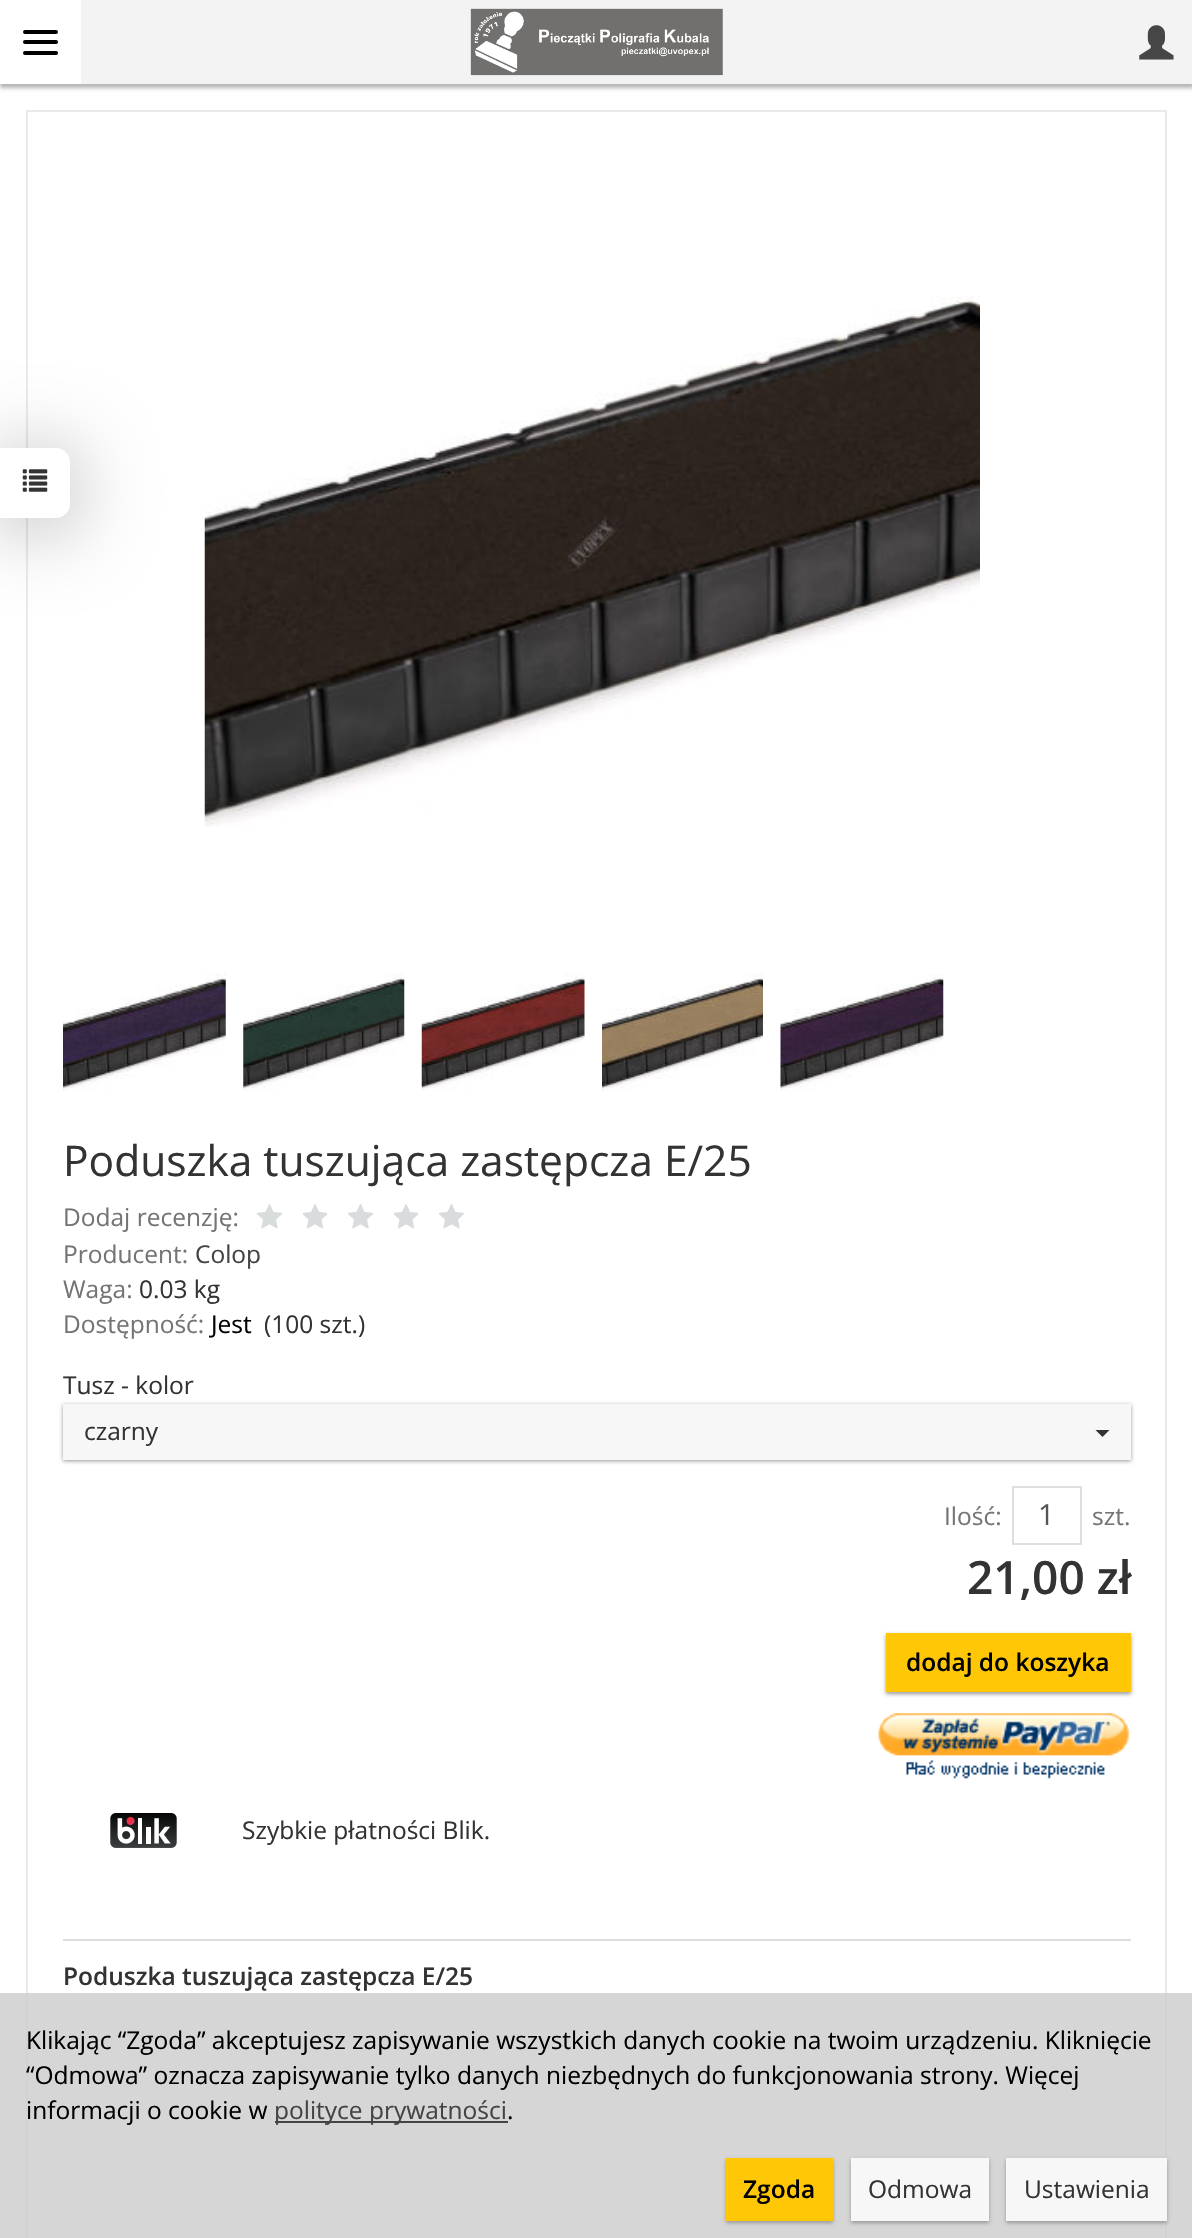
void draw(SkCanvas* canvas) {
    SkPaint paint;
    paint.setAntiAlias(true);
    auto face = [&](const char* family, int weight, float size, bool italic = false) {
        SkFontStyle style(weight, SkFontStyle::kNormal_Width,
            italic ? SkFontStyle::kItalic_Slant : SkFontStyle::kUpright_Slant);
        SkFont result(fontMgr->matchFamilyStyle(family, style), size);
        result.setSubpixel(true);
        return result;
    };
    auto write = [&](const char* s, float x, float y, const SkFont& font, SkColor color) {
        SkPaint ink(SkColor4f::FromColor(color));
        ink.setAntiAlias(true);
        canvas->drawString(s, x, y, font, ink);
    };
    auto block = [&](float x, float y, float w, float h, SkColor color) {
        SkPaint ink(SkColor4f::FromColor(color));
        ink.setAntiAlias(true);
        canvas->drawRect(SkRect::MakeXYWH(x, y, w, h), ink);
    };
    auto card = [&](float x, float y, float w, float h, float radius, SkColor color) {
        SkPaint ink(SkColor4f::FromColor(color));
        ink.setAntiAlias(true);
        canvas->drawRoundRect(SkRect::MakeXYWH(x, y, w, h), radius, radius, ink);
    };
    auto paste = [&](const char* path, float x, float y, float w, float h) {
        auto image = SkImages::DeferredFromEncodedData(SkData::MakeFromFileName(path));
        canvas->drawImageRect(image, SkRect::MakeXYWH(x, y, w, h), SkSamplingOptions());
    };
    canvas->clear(SK_ColorWHITE);
    paint.setColor(SkColorSetARGB(74, 0, 0, 0));
    paint.setMaskFilter(SkMaskFilter::MakeBlur(kNormal_SkBlurStyle, 2));
    canvas->drawRect(SkRect::MakeXYWH(0, 4, 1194, 84), paint);
    paint.setMaskFilter(nullptr);
    block(81, 0, 1111, 84, SkColorSetRGB(243, 243, 243));
    block(0, 0, 81, 84, SK_ColorWHITE);
    card(23, 30, 35, 4, 2, SK_ColorBLACK);
    card(23, 40, 35, 4, 2, SK_ColorBLACK);
    card(23, 51, 35, 4, 2, SK_ColorBLACK);
    paste("pic1.png", 470, 8, 253, 68);
    paste("pic2.png", 1139, 25, 35, 35);
    paint.setStyle(SkPaint::kStroke_Style);
    paint.setStrokeWidth(2);
    paint.setColor(SkColorSetRGB(234, 234, 234));
    canvas->drawRect(SkRect::MakeXYWH(27, 111, 1139, 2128), paint);
    paint.setStyle(SkPaint::kFill_Style);
    paint.setColor(SkColorSetARGB(89, 0, 0, 0));
    paint.setMaskFilter(SkMaskFilter::MakeBlur(kNormal_SkBlurStyle, 39.5f));
    canvas->drawRoundRect(SkRect::MakeXYWH(0, 455, 70, 70), 14, 14, paint);
    paint.setMaskFilter(nullptr);
    paint.setColor(SK_ColorWHITE);
    canvas->drawPath(SkPathBuilder().moveTo(0, 448).lineTo(56, 448).cubicTo(63.5f, 448, 70, 454.5f, 70, 462).lineTo(70, 504).cubicTo(70, 511.5f, 63.5f, 518, 56, 518).lineTo(0, 518).close().detach(), paint);
    paste("pic3.png", 22, 469, 26, 23);
    paste("pic4.png", 204, 296, 776, 531);
    paste("pic5.png", 63, 973, 163, 118);
    paste("pic6.png", 243, 972, 162, 119);
    paste("pic7.png", 421, 972, 164, 119);
    paste("pic8.png", 602, 972, 161, 119);
    paste("pic9.png", 780, 974, 164, 117);
    auto kFont1 = face("Open Sans", 400, 42.5f);
    write("Poduszka tuszująca zastępcza E/25", 63, 1176, kFont1, SkColorSetRGB(51, 51, 51));
    auto kFont2 = face("Open Sans", 400, 24.5f);
    write("Dodaj recenzję:", 63, 1226, kFont2, SkColorSetRGB(116, 116, 116));
    paste("pic10.png", 257, 1204, 25, 25);
    paste("pic11.png", 303, 1204, 24, 25);
    paste("pic10.png", 348, 1204, 25, 25);
    paste("pic11.png", 394, 1204, 24, 25);
    paste("pic10.png", 439, 1204, 25, 25);
    write("Producent:", 63, 1263, kFont2, SkColorSetRGB(116, 116, 116));
    write("Colop", 195, 1263, kFont2, SkColorSetRGB(68, 68, 68));
    write("Waga:", 63, 1298, kFont2, SkColorSetRGB(116, 116, 116));
    write("0.03 kg", 139, 1298, kFont2, SkColorSetRGB(51, 51, 51));
    write("Dostępność:", 63, 1333, kFont2, SkColorSetRGB(116, 116, 116));
    write("Jest", 211, 1333, kFont2, SK_ColorBLACK);
    write("(100 szt.)", 264, 1333, kFont2, SkColorSetRGB(51, 51, 51));
    write("Tusz - kolor", 63, 1394, kFont2, SkColorSetRGB(51, 51, 51));
    paint.setColor(SkColorSetRGB(151, 151, 151));
    paint.setMaskFilter(SkMaskFilter::MakeBlur(kNormal_SkBlurStyle, 2));
    canvas->drawRect(SkRect::MakeXYWH(63, 1405, 1068, 56), paint);
    paint.setMaskFilter(nullptr);
    block(63, 1404, 1068, 56, SkColorSetRGB(247, 247, 247));
    write("czarny", 84, 1440, kFont2, SkColorSetRGB(51, 51, 51));
    paint.setColor(SkColorSetRGB(51, 51, 51));
    canvas->drawPath(SkPathBuilder().moveTo(1095.5f, 1430).lineTo(1109.5f, 1430).lineTo(1102.5f, 1437).close().detach(), paint);
    write("Ilość:", 944, 1525, kFont2, SkColorSetRGB(116, 116, 116));
    paint.setStyle(SkPaint::kStroke_Style);
    paint.setColor(SkColorSetRGB(223, 223, 223));
    canvas->drawRect(SkRect::MakeXYWH(1013, 1487, 68, 57), paint);
    auto kFont3 = face("Open Sans", 400, 29);
    write("1", 1038, 1525, kFont3, SkColorSetRGB(85, 85, 85));
    write("szt.", 1092, 1525, kFont2, SkColorSetRGB(116, 116, 116));
    auto kFont4 = face("Open Sans", 600, 46);
    write("21,00 zł", 967, 1594, kFont4, SkColorSetRGB(51, 51, 51));
    paint.setStyle(SkPaint::kFill_Style);
    paint.setColor(SkColorSetRGB(151, 151, 151));
    paint.setMaskFilter(SkMaskFilter::MakeBlur(kNormal_SkBlurStyle, 2));
    canvas->drawRect(SkRect::MakeXYWH(886, 1635, 245, 59), paint);
    paint.setMaskFilter(nullptr);
    block(886, 1633, 245, 59, SkColorSetRGB(255, 199, 5));
    auto kFont5 = face("Open Sans", 600, 24.5f);
    write("dodaj do koszyka", 906, 1671, kFont5, SK_ColorBLACK);
    paste("pic12.png", 878, 1713, 252, 66);
    paste("pic13.png", 110, 1813, 67, 35);
    write("Szybkie płatności Blik.", 242, 1839, kFont2, SkColorSetRGB(51, 51, 51));
    block(63, 1939, 1068, 2, SkColorSetRGB(221, 221, 221));
    write("Poduszka tuszująca zastępcza E/25", 63, 1985, kFont5, SkColorSetRGB(51, 51, 51));
    block(0, 1993, 1192, 245, SkColorSetARGB(204, 204, 204, 204));
    write("Klikając “Zgoda” akceptujesz zapisywanie wszystkich danych cookie na twoim urządzeniu. Kliknięcie", 26, 2049, kFont2, SK_ColorBLACK);
    write("“Odmowa” oznacza zapisywanie tylko danych niezbędnych do funkcjonowania strony. Więcej", 26, 2084, kFont2, SK_ColorBLACK);
    write("informacji o cookie w", 26, 2119, kFont2, SK_ColorBLACK);
    block(275, 2121, 233, 2, SkColorSetRGB(68, 68, 68));
    write("polityce prywatności", 274, 2119, kFont2, SkColorSetRGB(68, 68, 68));
    write(".", 507, 2119, kFont2, SK_ColorBLACK);
    paint.setMaskFilter(SkMaskFilter::MakeBlur(kNormal_SkBlurStyle, 2));
    canvas->drawRect(SkRect::MakeXYWH(726, 2160, 107, 63), paint);
    paint.setMaskFilter(nullptr);
    block(726, 2158, 107, 63, SkColorSetRGB(255, 199, 5));
    write("Zgoda", 743, 2198, kFont5, SK_ColorBLACK);
    paint.setMaskFilter(SkMaskFilter::MakeBlur(kNormal_SkBlurStyle, 2));
    canvas->drawRect(SkRect::MakeXYWH(851, 2160, 138, 63), paint);
    paint.setMaskFilter(nullptr);
    block(851, 2158, 138, 63, SkColorSetRGB(247, 247, 247));
    write("Odmowa", 868, 2198, kFont2, SkColorSetRGB(51, 51, 51));
    paint.setMaskFilter(SkMaskFilter::MakeBlur(kNormal_SkBlurStyle, 2));
    canvas->drawRect(SkRect::MakeXYWH(1006, 2160, 161, 63), paint);
    paint.setMaskFilter(nullptr);
    block(1006, 2158, 161, 63, SkColorSetRGB(247, 247, 247));
    write("Ustawienia", 1024, 2198, kFont2, SkColorSetRGB(51, 51, 51));
}
